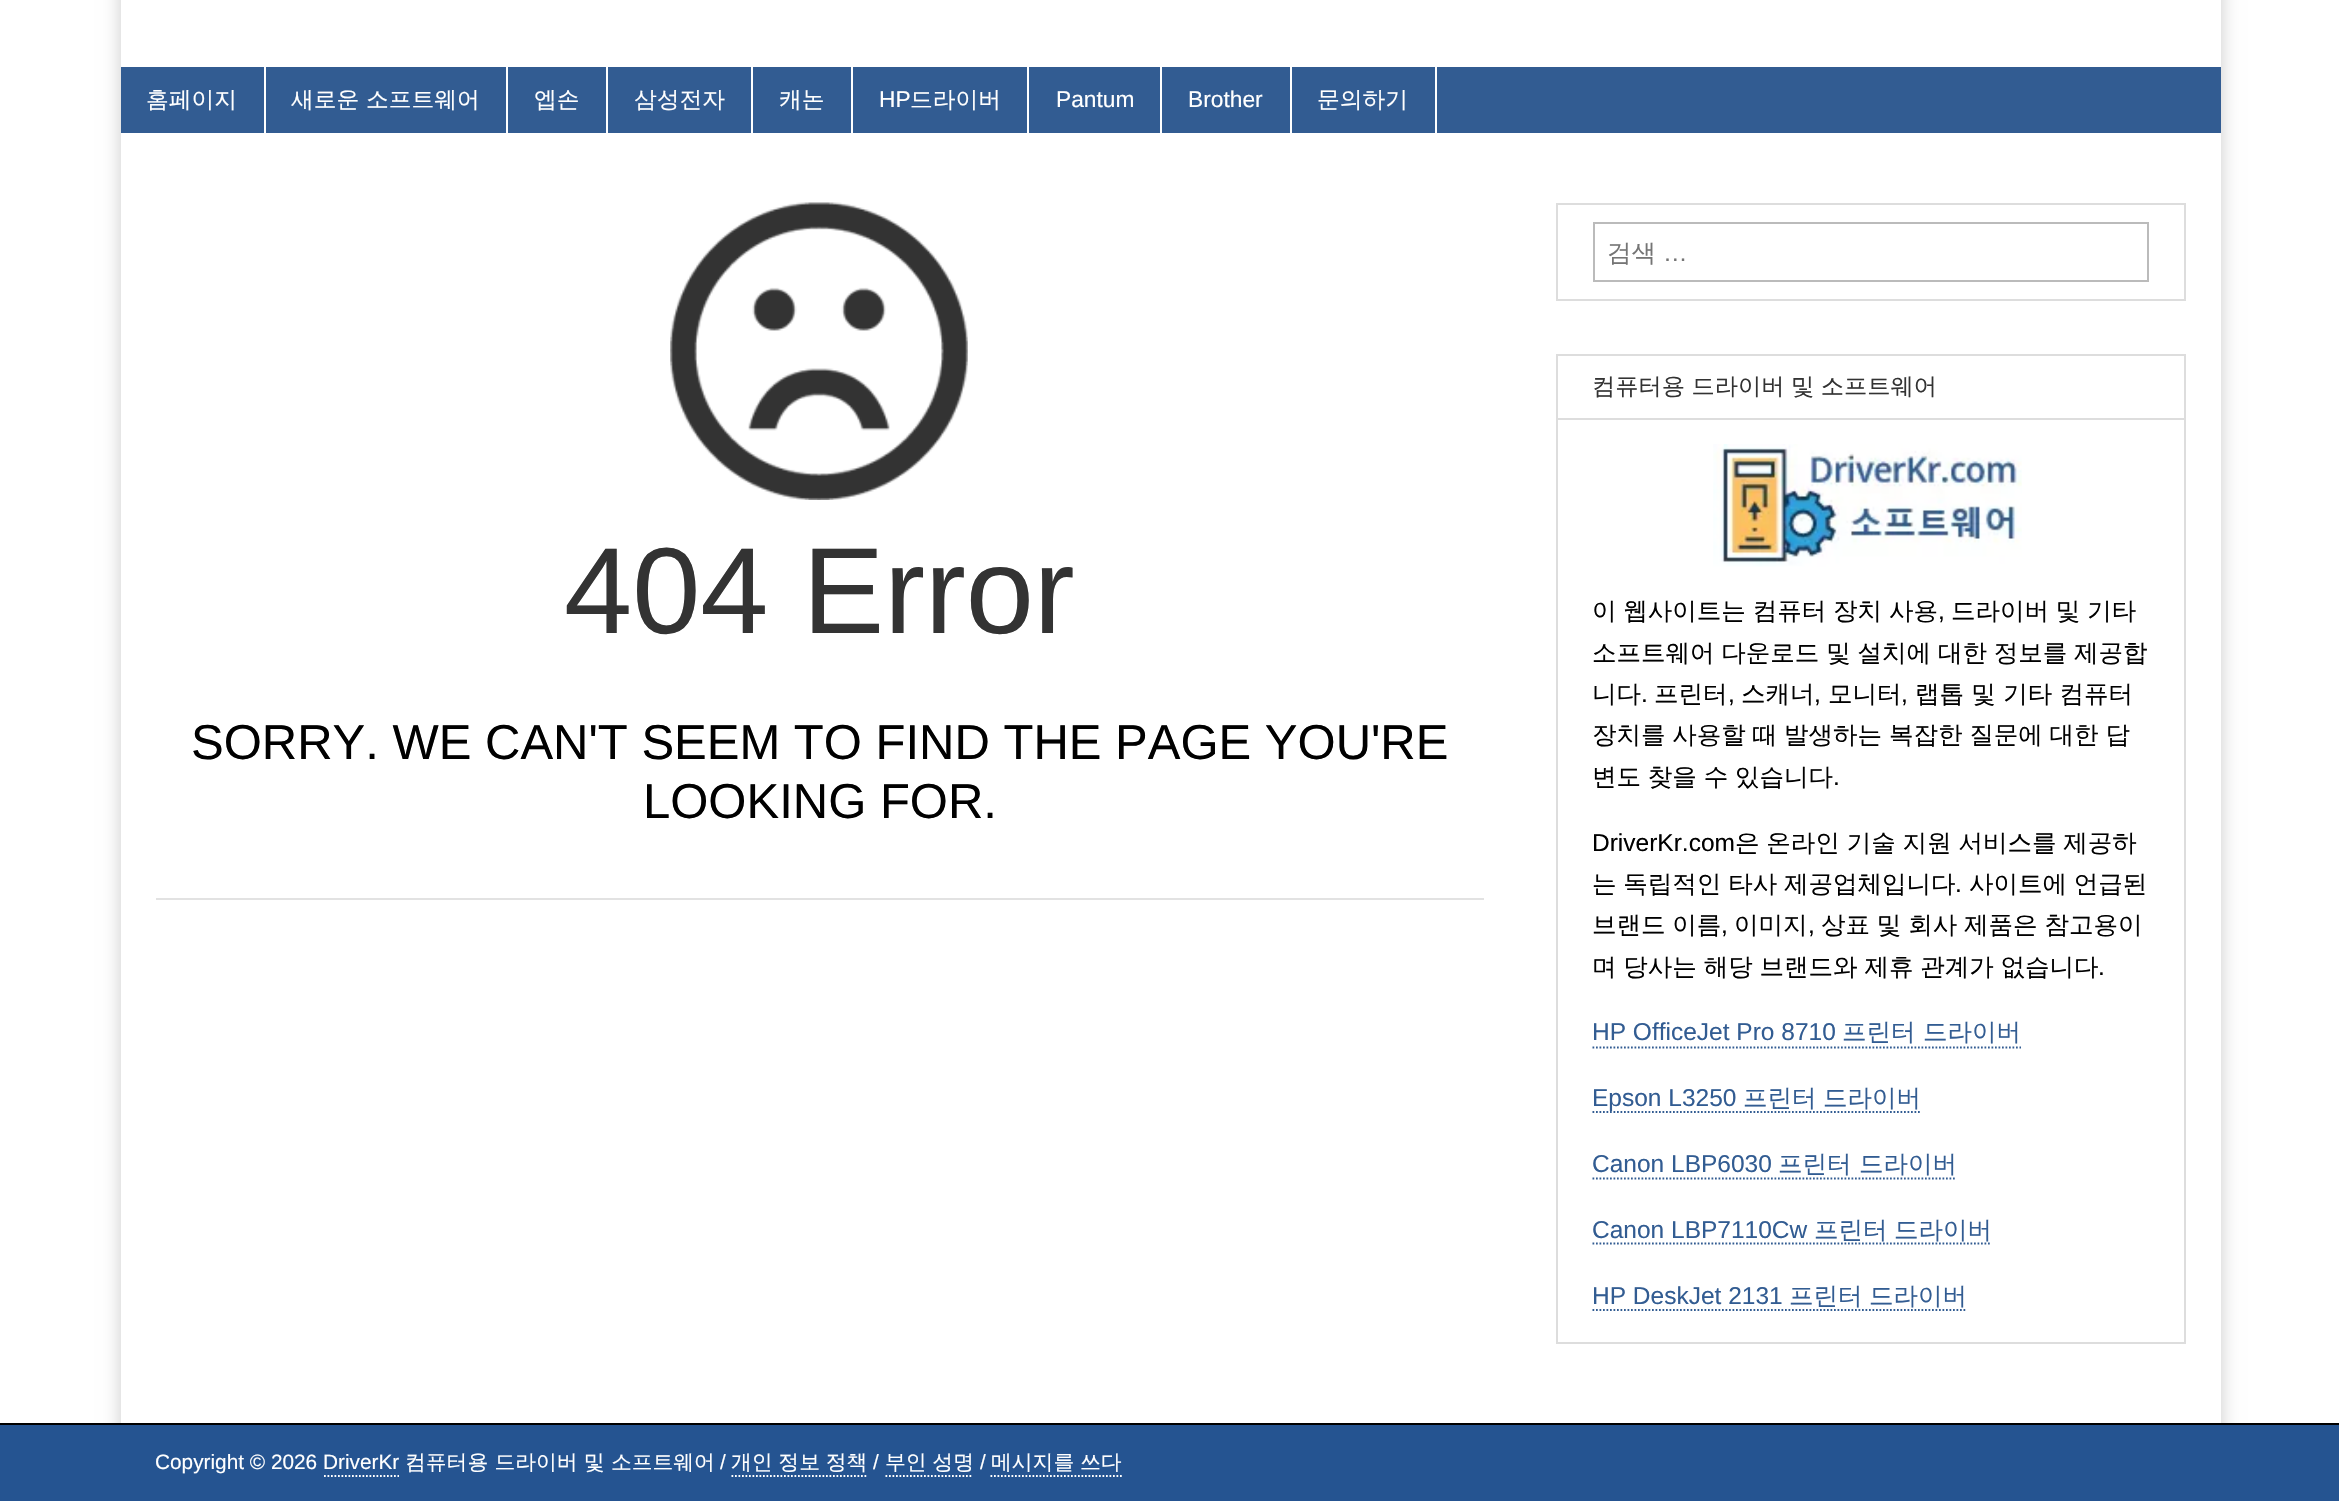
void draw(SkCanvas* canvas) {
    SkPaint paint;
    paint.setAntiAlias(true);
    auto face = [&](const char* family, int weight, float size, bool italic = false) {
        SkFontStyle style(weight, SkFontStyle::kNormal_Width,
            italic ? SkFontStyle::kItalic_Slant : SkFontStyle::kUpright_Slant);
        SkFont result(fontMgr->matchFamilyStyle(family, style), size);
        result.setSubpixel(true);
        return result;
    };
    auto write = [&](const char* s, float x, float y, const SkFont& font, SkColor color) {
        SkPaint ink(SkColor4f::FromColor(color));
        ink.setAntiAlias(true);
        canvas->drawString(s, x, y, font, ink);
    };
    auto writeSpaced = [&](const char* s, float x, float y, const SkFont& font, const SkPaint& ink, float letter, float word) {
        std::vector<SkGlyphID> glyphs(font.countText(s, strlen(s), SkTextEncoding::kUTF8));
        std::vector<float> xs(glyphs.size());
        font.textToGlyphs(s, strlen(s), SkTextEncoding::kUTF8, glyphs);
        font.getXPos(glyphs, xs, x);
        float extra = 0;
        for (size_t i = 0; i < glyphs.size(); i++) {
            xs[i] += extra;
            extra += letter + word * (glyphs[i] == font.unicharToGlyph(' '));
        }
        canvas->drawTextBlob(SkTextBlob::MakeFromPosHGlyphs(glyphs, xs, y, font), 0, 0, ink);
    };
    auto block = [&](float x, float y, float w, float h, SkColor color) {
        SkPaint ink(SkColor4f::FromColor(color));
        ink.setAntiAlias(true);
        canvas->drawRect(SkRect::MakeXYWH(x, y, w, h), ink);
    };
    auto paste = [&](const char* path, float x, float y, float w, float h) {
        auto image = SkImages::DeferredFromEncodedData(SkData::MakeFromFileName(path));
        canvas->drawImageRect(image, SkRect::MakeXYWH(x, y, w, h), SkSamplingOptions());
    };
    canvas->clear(SK_ColorWHITE);
    paint.setColor(SkColorSetARGB(51, 0, 0, 0));
    paint.setMaskFilter(SkMaskFilter::MakeBlur(kNormal_SkBlurStyle, 9));
    canvas->drawRect(SkRect::MakeXYWH(121, -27, 2100, 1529), paint);
    paint.setMaskFilter(nullptr);
    block(121, 0, 2100, 1423, SK_ColorWHITE);
    block(121, 67, 2100, 66, SkColorSetRGB(50, 92, 146));
    block(264, 67, 2, 66, SK_ColorWHITE);
    auto kFont1 = face("WenQuanYi Zen Hei", 500, 22.75f);
    write("홈페이지", 146, 107, kFont1, SK_ColorWHITE);
    block(506, 67, 2, 66, SK_ColorWHITE);
    write("새로운 소프트웨어", 291, 107, kFont1, SK_ColorWHITE);
    block(606, 67, 2, 66, SK_ColorWHITE);
    write("엡손", 534, 107, kFont1, SK_ColorWHITE);
    block(751, 67, 2, 66, SK_ColorWHITE);
    write("삼성전자", 634, 107, kFont1, SK_ColorWHITE);
    block(851, 67, 2, 66, SK_ColorWHITE);
    write("캐논", 779, 107, kFont1, SK_ColorWHITE);
    block(1027, 67, 2, 66, SK_ColorWHITE);
    auto kFont2 = face("Liberation Sans", 400, 22.75f);
    write("HP", 879, 107, kFont2, SK_ColorWHITE);
    write("드라이버", 910, 107, kFont1, SK_ColorWHITE);
    block(1160, 67, 2, 66, SK_ColorWHITE);
    write("Pantum", 1056, 107, kFont2, SK_ColorWHITE);
    block(1290, 67, 2, 66, SK_ColorWHITE);
    write("Brother", 1188, 107, kFont2, SK_ColorWHITE);
    block(1435, 67, 2, 66, SK_ColorWHITE);
    write("문의하기", 1317, 107, kFont1, SK_ColorWHITE);
    paste("pic1.png", 670, 202, 298, 298);
    auto kFont3 = face("Liberation Sans", 400, 122.5f);
    write("404 Error", 564, 633, kFont3, SkColorSetRGB(51, 51, 51));
    block(156, 898, 1328, 2, SkColorSetRGB(226, 226, 226));
    auto kFont4 = face("Liberation Sans", 400, 49);
    write("SORRY. WE CAN'T SEEM TO FIND THE PAGE YOU'RE", 191, 759, kFont4, SK_ColorBLACK);
    write("LOOKING FOR.", 643, 818, kFont4, SK_ColorBLACK);
    paint.setStyle(SkPaint::kStroke_Style);
    paint.setStrokeWidth(2);
    paint.setColor(SkColorSetRGB(221, 221, 221));
    canvas->drawRect(SkRect::MakeXYWH(1557, 204, 628, 96), paint);
    paint.setColor(SkColorSetRGB(187, 187, 187));
    canvas->drawRect(SkRect::MakeXYWH(1594, 223, 554, 58), paint);
    auto kFont5 = face("WenQuanYi Zen Hei", 500, 24.5f);
    write("검색", 1607, 261, kFont5, SkColorSetRGB(117, 117, 117));
    auto kFont6 = face("Liberation Sans", 400, 24.5f);
    write("…", 1663, 261, kFont6, SkColorSetRGB(117, 117, 117));
    paint.setColor(SkColorSetRGB(221, 221, 221));
    canvas->drawRect(SkRect::MakeXYWH(1557, 355, 628, 988), paint);
    block(1558, 418, 626, 2, SkColorSetRGB(221, 221, 221));
    auto kFont7 = face("WenQuanYi Zen Hei", 500, 23.25f);
    paint.setStyle(SkPaint::kFill_Style);
    paint.setColor(SkColorSetRGB(51, 51, 51));
    writeSpaced("컴퓨터용 드라이버 및 소프트웨어", 1592, 394, kFont7, paint, 0, -0.5f);
    paste("pic2.png", 1713, 444, 309, 123);
    paint.setColor(SK_ColorBLACK);
    writeSpaced("이 웹사이트는 컴퓨터 장치 사용", 1592, 619, kFont5, paint, 0, -0.5f);
    write(",", 1938, 619, kFont6, SK_ColorBLACK);
    writeSpaced("드라이버 및 기타", 1951, 619, kFont5, paint, 0, -0.5f);
    writeSpaced("소프트웨어 다운로드 및 설치에 대한 정보를 제공합", 1592, 661, kFont5, paint, 0, -0.5f);
    write("니다", 1592, 702, kFont5, SK_ColorBLACK);
    write(".", 1641, 702, kFont6, SK_ColorBLACK);
    write("프린터", 1654, 702, kFont5, SK_ColorBLACK);
    write(",", 1728, 702, kFont6, SK_ColorBLACK);
    write("스캐너", 1741, 702, kFont5, SK_ColorBLACK);
    write(",", 1814, 702, kFont6, SK_ColorBLACK);
    write("모니터", 1828, 702, kFont5, SK_ColorBLACK);
    write(",", 1901, 702, kFont6, SK_ColorBLACK);
    write("랩톱 및 기타 컴퓨터", 1915, 702, kFont5, SK_ColorBLACK);
    writeSpaced("장치를 사용할 때 발생하는 복잡한 질문에 대한 답", 1592, 743, kFont5, paint, 0, -0.5f);
    writeSpaced("변도 찾을 수 있습니다", 1592, 785, kFont5, paint, 0, -0.5f);
    write(".", 1833, 785, kFont6, SK_ColorBLACK);
    write("DriverKr.com", 1592, 851, kFont6, SK_ColorBLACK);
    writeSpaced("은 온라인 기술 지원 서비스를 제공하", 1735, 851, kFont5, paint, 0, -0.5f);
    writeSpaced("는 독립적인 타사 제공업체입니다", 1592, 892, kFont5, paint, 0, -0.5f);
    write(".", 1955, 892, kFont6, SK_ColorBLACK);
    writeSpaced("사이트에 언급된", 1969, 892, kFont5, paint, 0, -0.5f);
    writeSpaced("브랜드 이름", 1592, 933, kFont5, paint, 0, -0.5f);
    write(",", 1721, 933, kFont6, SK_ColorBLACK);
    write("이미지", 1734, 933, kFont5, SK_ColorBLACK);
    write(",", 1808, 933, kFont6, SK_ColorBLACK);
    writeSpaced("상표 및 회사 제품은 참고용이", 1821, 933, kFont5, paint, 0, -0.5f);
    writeSpaced("며 당사는 해당 브랜드와 제휴 관계가 없습니다", 1592, 975, kFont5, paint, 0, -0.5f);
    write(".", 2098, 975, kFont6, SK_ColorBLACK);
    write("HP OfficeJet Pro 8710", 1592, 1040, kFont6, SkColorSetRGB(50, 92, 146));
    write("프린터", 1842, 1040, kFont5, SkColorSetRGB(50, 92, 146));
    paint.setStyle(SkPaint::kStroke_Style);
    paint.setStrokeWidth(1.8f);
    paint.setColor(SkColorSetRGB(50, 92, 146));
    paint.setPathEffect(SkDashPathEffect::Make({{1.75f, 1.75f}}, 0));
    canvas->drawPath(SkPathBuilder().moveTo(1592.5f, 1047.5f).lineTo(2021, 1047.5f).detach(), paint);
    paint.setPathEffect(nullptr);
    write("드라이버", 1923, 1040, kFont5, SkColorSetRGB(50, 92, 146));
    paint.setPathEffect(SkDashPathEffect::Make({{1.75f, 1.75f}}, 0));
    canvas->drawPath(SkPathBuilder().moveTo(1592.5f, 1112).lineTo(1921.5f, 1112).detach(), paint);
    paint.setPathEffect(nullptr);
    write("Epson L3250", 1592, 1106, kFont6, SkColorSetRGB(50, 92, 146));
    write("프린터", 1743, 1106, kFont5, SkColorSetRGB(50, 92, 146));
    write("드라이버", 1823, 1106, kFont5, SkColorSetRGB(50, 92, 146));
    write("Canon LBP6030", 1592, 1172, kFont6, SkColorSetRGB(50, 92, 146));
    write("프린터", 1778, 1172, kFont5, SkColorSetRGB(50, 92, 146));
    paint.setPathEffect(SkDashPathEffect::Make({{1.75f, 1.75f}}, 0));
    canvas->drawPath(SkPathBuilder().moveTo(1592.5f, 1178.5f).lineTo(1956.5f, 1178.5f).detach(), paint);
    paint.setPathEffect(nullptr);
    write("드라이버", 1859, 1172, kFont5, SkColorSetRGB(50, 92, 146));
    write("Canon LBP7110Cw", 1592, 1238, kFont6, SkColorSetRGB(50, 92, 146));
    write("프린터", 1814, 1238, kFont5, SkColorSetRGB(50, 92, 146));
    paint.setPathEffect(SkDashPathEffect::Make({{1.75f, 1.75f}}, 0));
    canvas->drawPath(SkPathBuilder().moveTo(1592.5f, 1243.5f).lineTo(1991.5f, 1243.5f).detach(), paint);
    paint.setPathEffect(nullptr);
    write("드라이버", 1894, 1238, kFont5, SkColorSetRGB(50, 92, 146));
    write("HP DeskJet 2131", 1592, 1304, kFont6, SkColorSetRGB(50, 92, 146));
    write("프린터", 1789, 1304, kFont5, SkColorSetRGB(50, 92, 146));
    paint.setPathEffect(SkDashPathEffect::Make({{1.75f, 1.75f}}, 0));
    canvas->drawPath(SkPathBuilder().moveTo(1592.5f, 1310).lineTo(1967, 1310).detach(), paint);
    paint.setPathEffect(nullptr);
    write("드라이버", 1869, 1304, kFont5, SkColorSetRGB(50, 92, 146));
    block(0, 1425, 2339, 76, SkColorSetRGB(37, 84, 145));
    block(0, 1423, 2339, 2, SK_ColorBLACK);
    auto kFont8 = face("Liberation Sans", 400, 20.8f);
    write("Copyright © 2026 DriverKr", 155, 1469, kFont8, SK_ColorWHITE);
    auto kFont9 = face("WenQuanYi Zen Hei", 500, 20.8f);
    write("컴퓨터용 드라이버 및 소프트웨어", 405, 1469, kFont9, SK_ColorWHITE);
    write("/", 720, 1469, kFont8, SK_ColorWHITE);
    paint.setStyle(SkPaint::kFill_Style);
    paint.setColor(SK_ColorWHITE);
    writeSpaced("개인 정보 정책", 731, 1469, kFont9, paint, 0, -0.5f);
    paint.setStyle(SkPaint::kStroke_Style);
    paint.setPathEffect(SkDashPathEffect::Make({{1.75f, 1.75f}}, 0));
    canvas->drawPath(SkPathBuilder().moveTo(731.5f, 1476).lineTo(868, 1476).detach(), paint);
    paint.setPathEffect(nullptr);
    write("/", 873, 1469, kFont8, SK_ColorWHITE);
    paint.setStyle(SkPaint::kFill_Style);
    writeSpaced("부인 성명", 885, 1469, kFont9, paint, 0, -0.5f);
    paint.setStyle(SkPaint::kStroke_Style);
    paint.setPathEffect(SkDashPathEffect::Make({{1.75f, 1.75f}}, 0));
    canvas->drawPath(SkPathBuilder().moveTo(885.5f, 1476).lineTo(973, 1476).detach(), paint);
    paint.setPathEffect(nullptr);
    write("/", 980, 1469, kFont8, SK_ColorWHITE);
    paint.setStyle(SkPaint::kFill_Style);
    writeSpaced("메시지를 쓰다", 991, 1469, kFont9, paint, 0, -0.5f);
    paint.setStyle(SkPaint::kStroke_Style);
    paint.setPathEffect(SkDashPathEffect::Make({{1.75f, 1.75f}}, 0));
    canvas->drawPath(SkPathBuilder().moveTo(990.5f, 1476).lineTo(1122, 1476).detach(), paint);
    paint.setPathEffect(nullptr);
    paint.setPathEffect(SkDashPathEffect::Make({{1.75f, 1.75f}}, 0));
    canvas->drawPath(SkPathBuilder().moveTo(324, 1476).lineTo(399, 1476).detach(), paint);
    paint.setPathEffect(nullptr);
}
